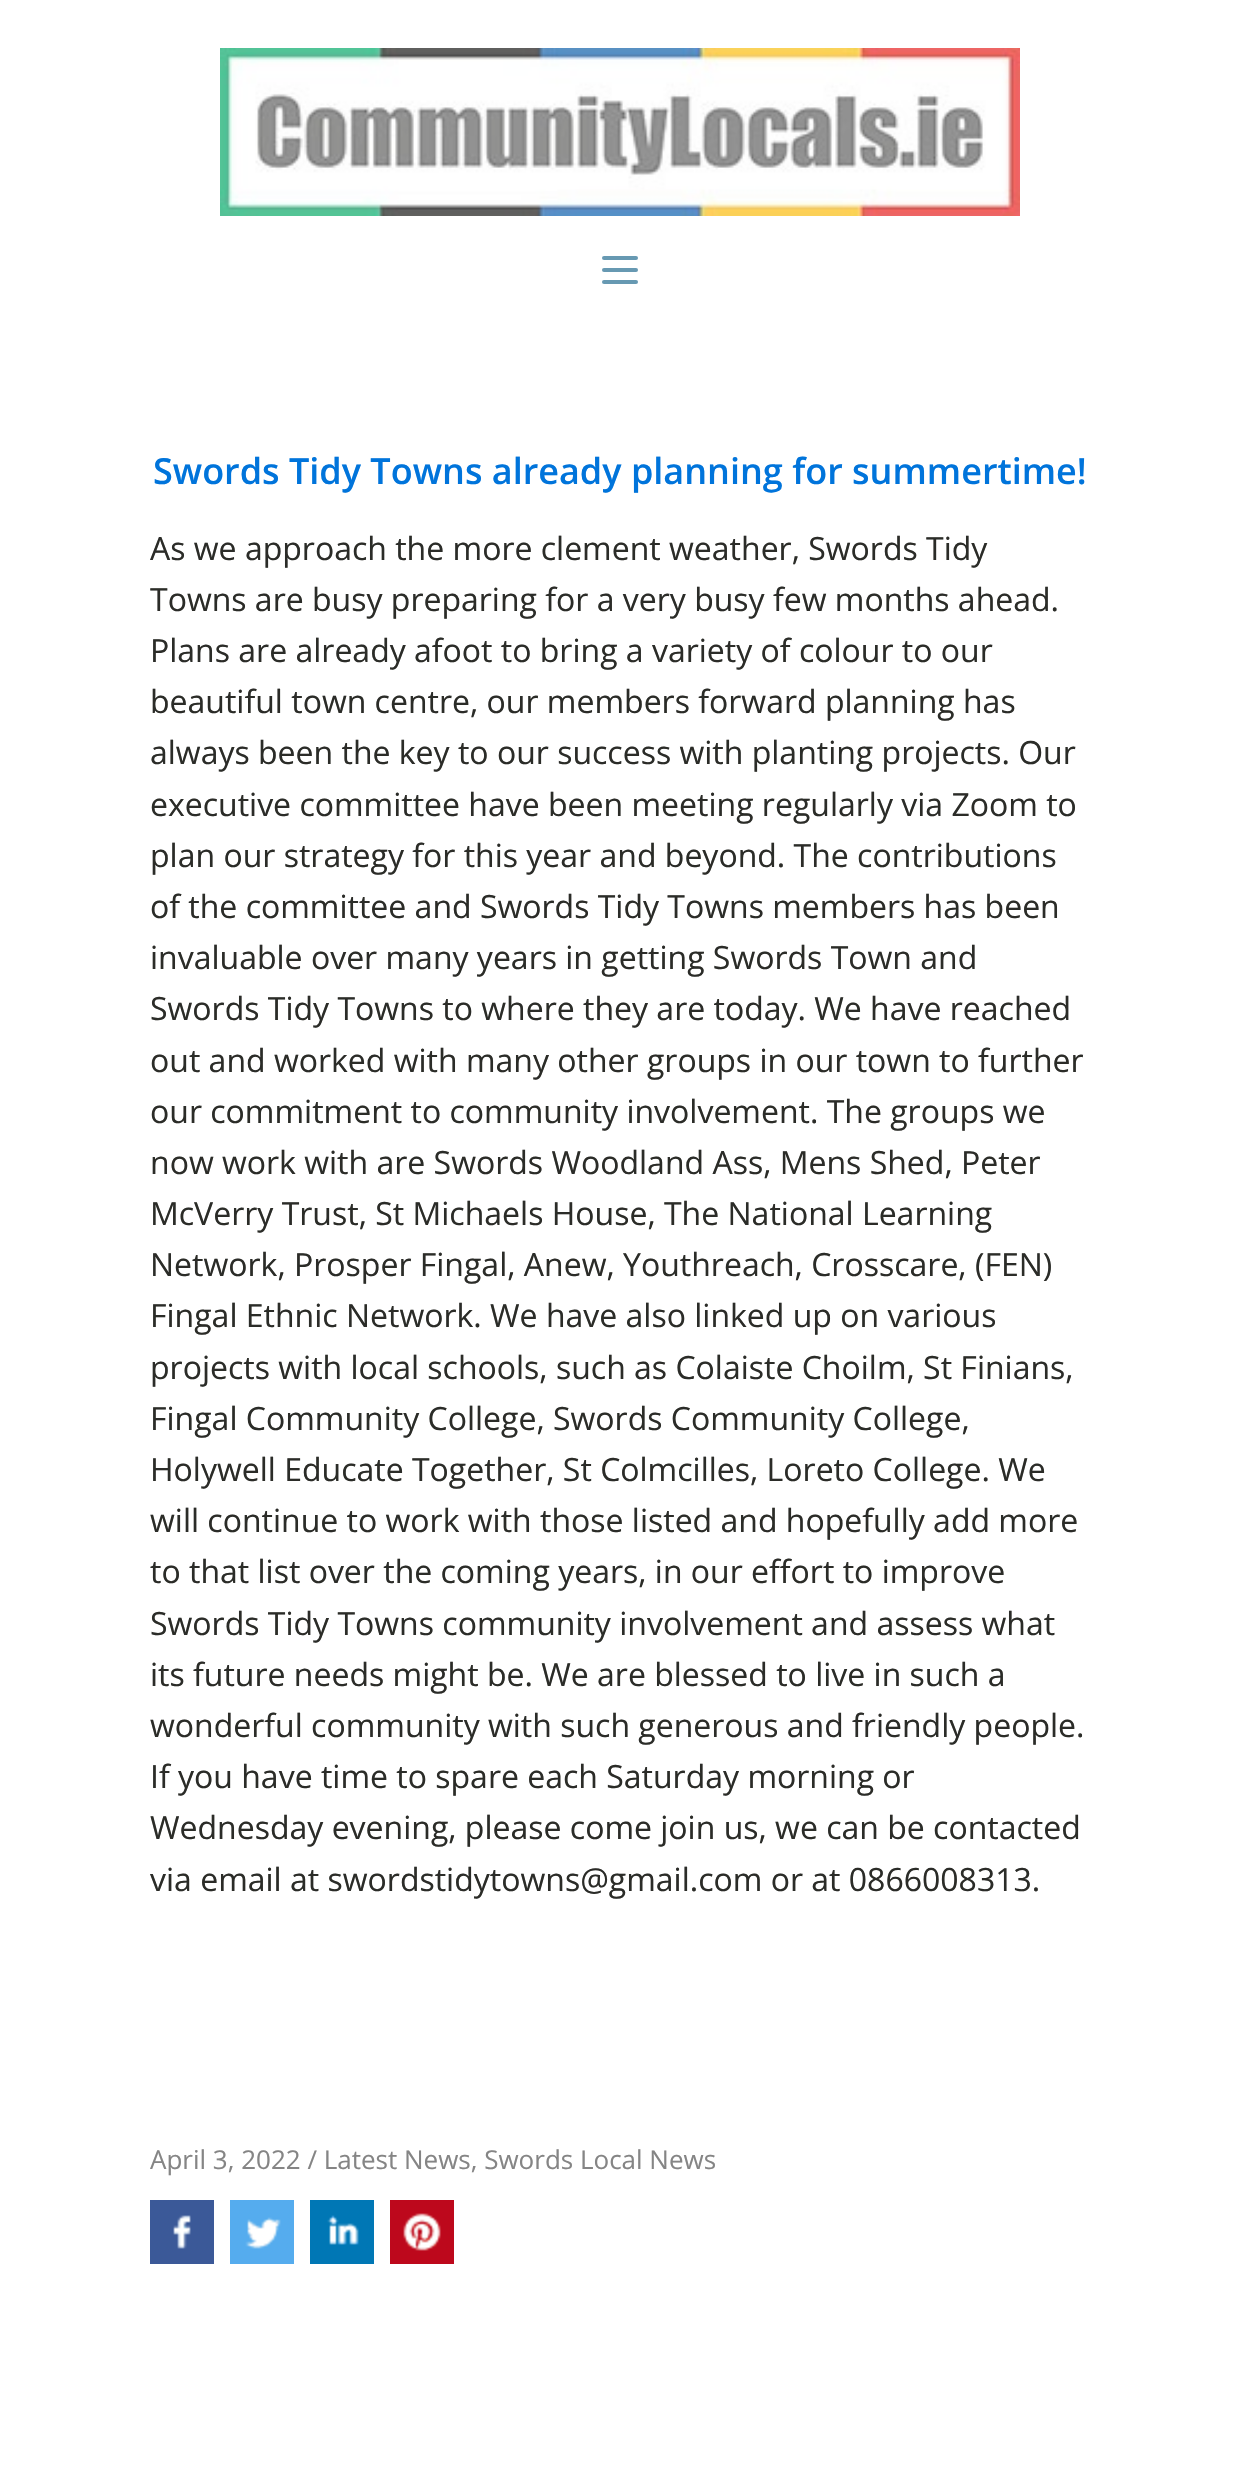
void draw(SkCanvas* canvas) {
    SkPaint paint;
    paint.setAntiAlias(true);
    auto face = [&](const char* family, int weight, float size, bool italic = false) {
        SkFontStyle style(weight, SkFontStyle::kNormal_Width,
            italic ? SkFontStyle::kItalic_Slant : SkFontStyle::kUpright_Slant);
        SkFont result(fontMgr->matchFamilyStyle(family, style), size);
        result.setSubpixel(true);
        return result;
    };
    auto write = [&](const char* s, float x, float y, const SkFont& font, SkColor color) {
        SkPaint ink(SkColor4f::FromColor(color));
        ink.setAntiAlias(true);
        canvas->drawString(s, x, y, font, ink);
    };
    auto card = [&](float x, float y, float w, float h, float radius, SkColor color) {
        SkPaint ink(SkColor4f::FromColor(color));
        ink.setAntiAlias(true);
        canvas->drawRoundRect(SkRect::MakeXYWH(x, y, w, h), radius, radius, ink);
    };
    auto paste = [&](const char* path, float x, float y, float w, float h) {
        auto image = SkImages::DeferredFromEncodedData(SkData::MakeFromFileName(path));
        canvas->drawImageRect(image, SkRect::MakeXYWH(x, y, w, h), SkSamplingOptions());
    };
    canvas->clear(SK_ColorWHITE);
    paste("pic1.png", 220, 48, 800, 168);
    card(602, 256, 36, 4, 2, SkColorSetRGB(103, 153, 178));
    card(602, 268, 36, 4, 2, SkColorSetRGB(103, 153, 178));
    card(602, 280, 36, 4, 2, SkColorSetRGB(103, 153, 178));
    auto kFont1 = face("Open Sans", 600, 36);
    write("Swords Tidy Towns already planning for summertime!", 153, 484, kFont1, SkColorSetRGB(0, 116, 219));
    auto kFont2 = face("Open Sans", 400, 32);
    write("As we approach the more clement weather, Swords Tidy", 150, 560, kFont2, SkColorSetRGB(43, 44, 40));
    write("Towns are busy preparing for a very busy few months ahead.", 150, 611, kFont2, SkColorSetRGB(43, 44, 40));
    write("Plans are already afoot to bring a variety of colour to our", 150, 662, kFont2, SkColorSetRGB(43, 44, 40));
    write("beautiful town centre, our members forward planning has", 150, 713, kFont2, SkColorSetRGB(43, 44, 40));
    write("always been the key to our success with planting projects. Our", 150, 764, kFont2, SkColorSetRGB(43, 44, 40));
    write("executive committee have been meeting regularly via Zoom to", 150, 816, kFont2, SkColorSetRGB(43, 44, 40));
    write("plan our strategy for this year and beyond. The contributions", 150, 867, kFont2, SkColorSetRGB(43, 44, 40));
    write("of the committee and Swords Tidy Towns members has been", 150, 918, kFont2, SkColorSetRGB(43, 44, 40));
    write("invaluable over many years in getting Swords Town and", 150, 969, kFont2, SkColorSetRGB(43, 44, 40));
    write("Swords Tidy Towns to where they are today. We have reached", 150, 1020, kFont2, SkColorSetRGB(43, 44, 40));
    write("out and worked with many other groups in our town to further", 150, 1072, kFont2, SkColorSetRGB(43, 44, 40));
    write("our commitment to community involvement. The groups we", 150, 1123, kFont2, SkColorSetRGB(43, 44, 40));
    write("now work with are Swords Woodland Ass, Mens Shed, Peter", 150, 1174, kFont2, SkColorSetRGB(43, 44, 40));
    write("McVerry Trust, St Michaels House, The National Learning", 150, 1225, kFont2, SkColorSetRGB(43, 44, 40));
    write("Network, Prosper Fingal, Anew, Youthreach, Crosscare, (FEN)", 150, 1276, kFont2, SkColorSetRGB(43, 44, 40));
    write("Fingal Ethnic Network. We have also linked up on various", 150, 1327, kFont2, SkColorSetRGB(43, 44, 40));
    write("projects with local schools, such as Colaiste Choilm, St Finians,", 150, 1379, kFont2, SkColorSetRGB(43, 44, 40));
    write("Fingal Community College, Swords Community College,", 150, 1430, kFont2, SkColorSetRGB(43, 44, 40));
    write("Holywell Educate Together, St Colmcilles, Loreto College. We", 150, 1481, kFont2, SkColorSetRGB(43, 44, 40));
    write("will continue to work with those listed and hopefully add more", 150, 1532, kFont2, SkColorSetRGB(43, 44, 40));
    write("to that list over the coming years, in our effort to improve", 150, 1583, kFont2, SkColorSetRGB(43, 44, 40));
    write("Swords Tidy Towns community involvement and assess what", 150, 1635, kFont2, SkColorSetRGB(43, 44, 40));
    write("its future needs might be. We are blessed to live in such a", 150, 1686, kFont2, SkColorSetRGB(43, 44, 40));
    write("wonderful community with such generous and friendly people.", 150, 1737, kFont2, SkColorSetRGB(43, 44, 40));
    write("If you have time to spare each Saturday morning or", 150, 1788, kFont2, SkColorSetRGB(43, 44, 40));
    write("Wednesday evening, please come join us, we can be contacted", 150, 1839, kFont2, SkColorSetRGB(43, 44, 40));
    write("via email at swordstidytowns@gmail.com or at 0866008313.", 150, 1891, kFont2, SkColorSetRGB(43, 44, 40));
    auto kFont3 = face("Open Sans", 400, 26);
    write("April 3, 2022 / Latest News, Swords Local News", 150, 2169, kFont3, SkColorSetRGB(133, 133, 133));
    paste("pic2.png", 150, 2200, 64, 64);
    paste("pic3.png", 230, 2200, 64, 64);
    paste("pic4.png", 310, 2200, 64, 64);
    paste("pic5.png", 390, 2200, 64, 64);
}
